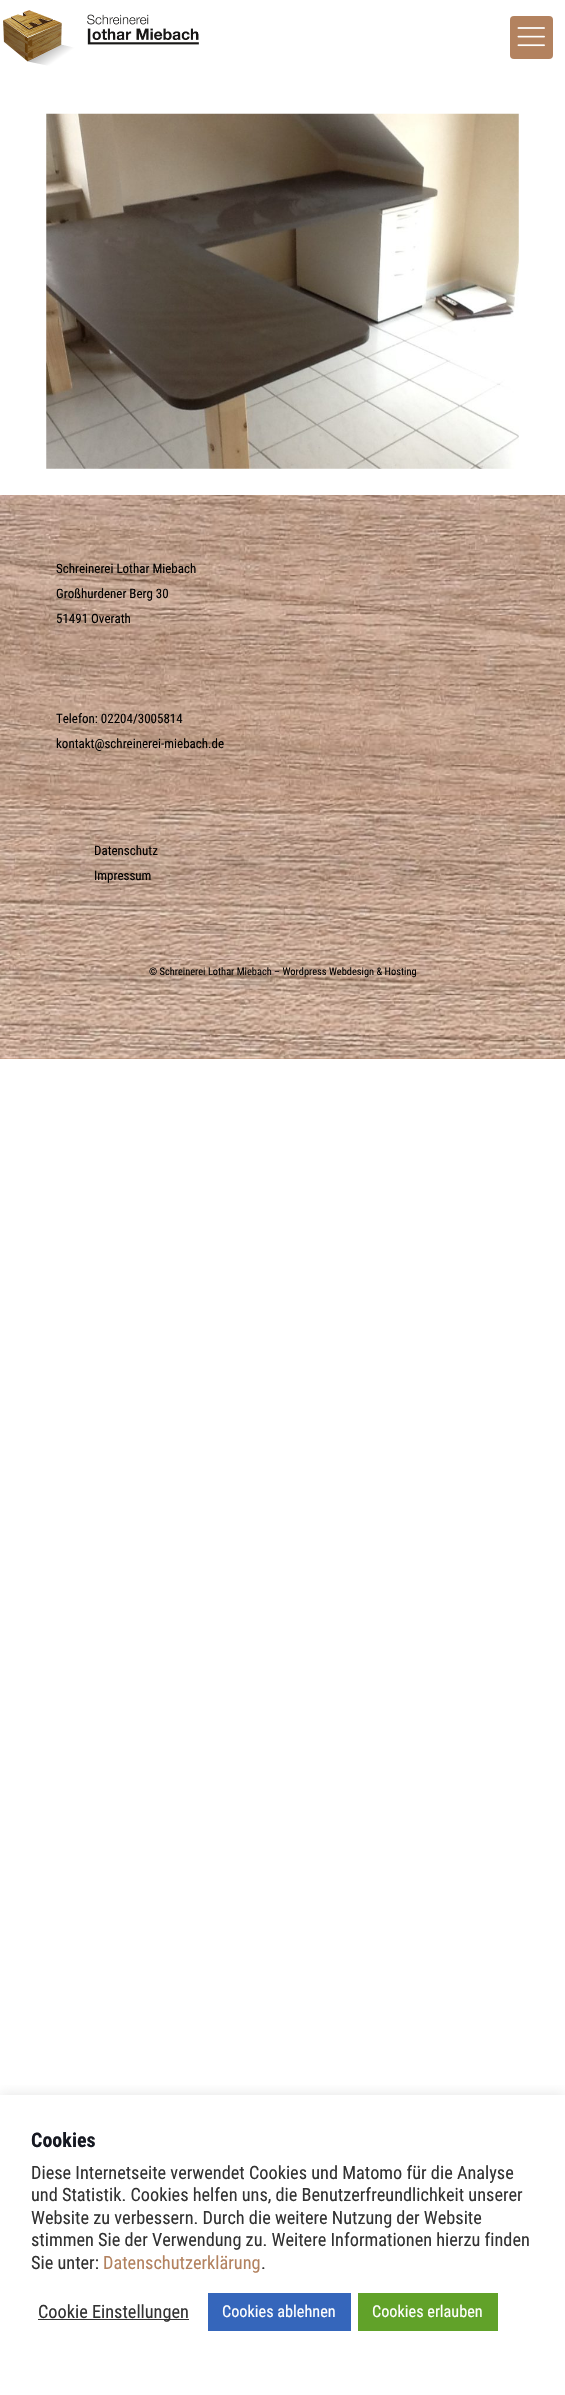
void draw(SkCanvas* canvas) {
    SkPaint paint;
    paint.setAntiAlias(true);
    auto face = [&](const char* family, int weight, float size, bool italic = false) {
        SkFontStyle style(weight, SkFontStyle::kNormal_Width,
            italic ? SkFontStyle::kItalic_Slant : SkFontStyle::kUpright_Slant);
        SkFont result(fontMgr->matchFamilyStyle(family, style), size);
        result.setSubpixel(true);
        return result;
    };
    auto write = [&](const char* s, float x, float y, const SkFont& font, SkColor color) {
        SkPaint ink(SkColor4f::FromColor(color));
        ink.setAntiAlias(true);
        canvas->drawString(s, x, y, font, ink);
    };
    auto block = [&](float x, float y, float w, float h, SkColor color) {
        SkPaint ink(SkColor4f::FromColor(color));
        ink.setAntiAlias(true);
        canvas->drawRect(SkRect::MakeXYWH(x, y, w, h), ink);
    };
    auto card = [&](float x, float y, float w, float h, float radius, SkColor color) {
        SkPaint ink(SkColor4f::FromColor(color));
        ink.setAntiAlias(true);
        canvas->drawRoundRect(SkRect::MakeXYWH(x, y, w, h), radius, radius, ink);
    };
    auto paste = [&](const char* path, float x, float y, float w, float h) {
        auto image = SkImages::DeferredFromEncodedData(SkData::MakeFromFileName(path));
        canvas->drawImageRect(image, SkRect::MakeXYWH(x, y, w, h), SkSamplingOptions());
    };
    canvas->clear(SK_ColorWHITE);
    paste("pic1.png", 3, 10, 196, 56);
    card(510, 16, 43, 43, 4, SkColorSetRGB(179, 130, 95));
    paste("pic2.png", 517, 27, 28, 20);
    paste("pic3.png", 46, 113, 473, 356);
    block(0, 1058, 565, 1, SkColorSetRGB(179, 130, 95));
    paste("pic4.png", 0, 495, 565, 564);
    auto kFont1 = face("Roboto Condensed", 400, 13);
    write("Schreinerei Lothar Miebach", 56, 573, kFont1, SK_ColorBLACK);
    write("Großhurdener Berg 30", 56, 598, kFont1, SK_ColorBLACK);
    write("51491 Overath", 56, 623, kFont1, SK_ColorBLACK);
    write("Telefon: 02204/3005814", 56, 723, kFont1, SK_ColorBLACK);
    write("kontakt@schreinerei-miebach.de", 56, 748, kFont1, SK_ColorBLACK);
    block(56, 833, 453, 62, SkColorSetARGB(8, 0, 0, 0));
    write("Datenschutz", 94, 855, kFont1, SK_ColorBLACK);
    block(56, 863, 88, 1, SkColorSetARGB(20, 255, 255, 255));
    write("Impressum", 94, 880, kFont1, SK_ColorBLACK);
    block(0, 958, 565, 1, SkColorSetARGB(26, 255, 255, 255));
    auto kFont2 = face("Roboto Condensed", 400, 10.4f);
    write("© Schreinerei Lothar Miebach – Wordpress Webdesign & Hosting", 149, 975, kFont2, SK_ColorBLACK);
    canvas->save();
    canvas->clipRect(SkRect::MakeXYWH(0, 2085, 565, 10));
    paint.setColor(SkColorSetARGB(77, 172, 171, 171));
    paint.setMaskFilter(SkMaskFilter::MakeBlur(kNormal_SkBlurStyle, 6));
    canvas->drawRect(SkRect::MakeXYWH(0, 2094, 565, 300), paint);
    paint.setMaskFilter(nullptr);
    canvas->restore();
    auto kFont3 = face("Roboto Condensed", 700, 20);
    write("Cookies", 31, 2147, kFont3, SkColorSetRGB(22, 25, 34));
    auto kFont4 = face("Roboto Condensed", 400, 18.3f);
    write("Diese Internetseite verwendet Cookies und Matomo für die Analyse", 31, 2179, kFont4, SkColorSetRGB(51, 51, 51));
    write("und Statistik. Cookies helfen uns, die Benutzerfreundlichkeit unserer", 31, 2201, kFont4, SkColorSetRGB(51, 51, 51));
    write("Website zu verbessern. Durch die weitere Nutzung der Website", 31, 2224, kFont4, SkColorSetRGB(51, 51, 51));
    write("stimmen Sie der Verwendung zu. Weitere Informationen hierzu finden", 31, 2246, kFont4, SkColorSetRGB(51, 51, 51));
    write("Sie unter:", 31, 2269, kFont4, SkColorSetRGB(51, 51, 51));
    write("Datenschutzerklärung", 103, 2269, kFont4, SkColorSetRGB(179, 130, 95));
    write(".", 261, 2269, kFont4, SkColorSetRGB(51, 51, 51));
    block(38, 2319, 151, 1, SkColorSetRGB(51, 51, 51));
    write("Cookie Einstellungen", 38, 2318, kFont4, SkColorSetRGB(51, 51, 51));
    block(208, 2293, 143, 38, SkColorSetRGB(53, 102, 187));
    auto kFont5 = face("Roboto Condensed", 400, 16.25f);
    write("Cookies ablehnen", 222, 2317, kFont5, SK_ColorWHITE);
    block(358, 2293, 140, 38, SkColorSetRGB(97, 162, 41));
    write("Cookies erlauben", 372, 2317, kFont5, SK_ColorWHITE);
}
